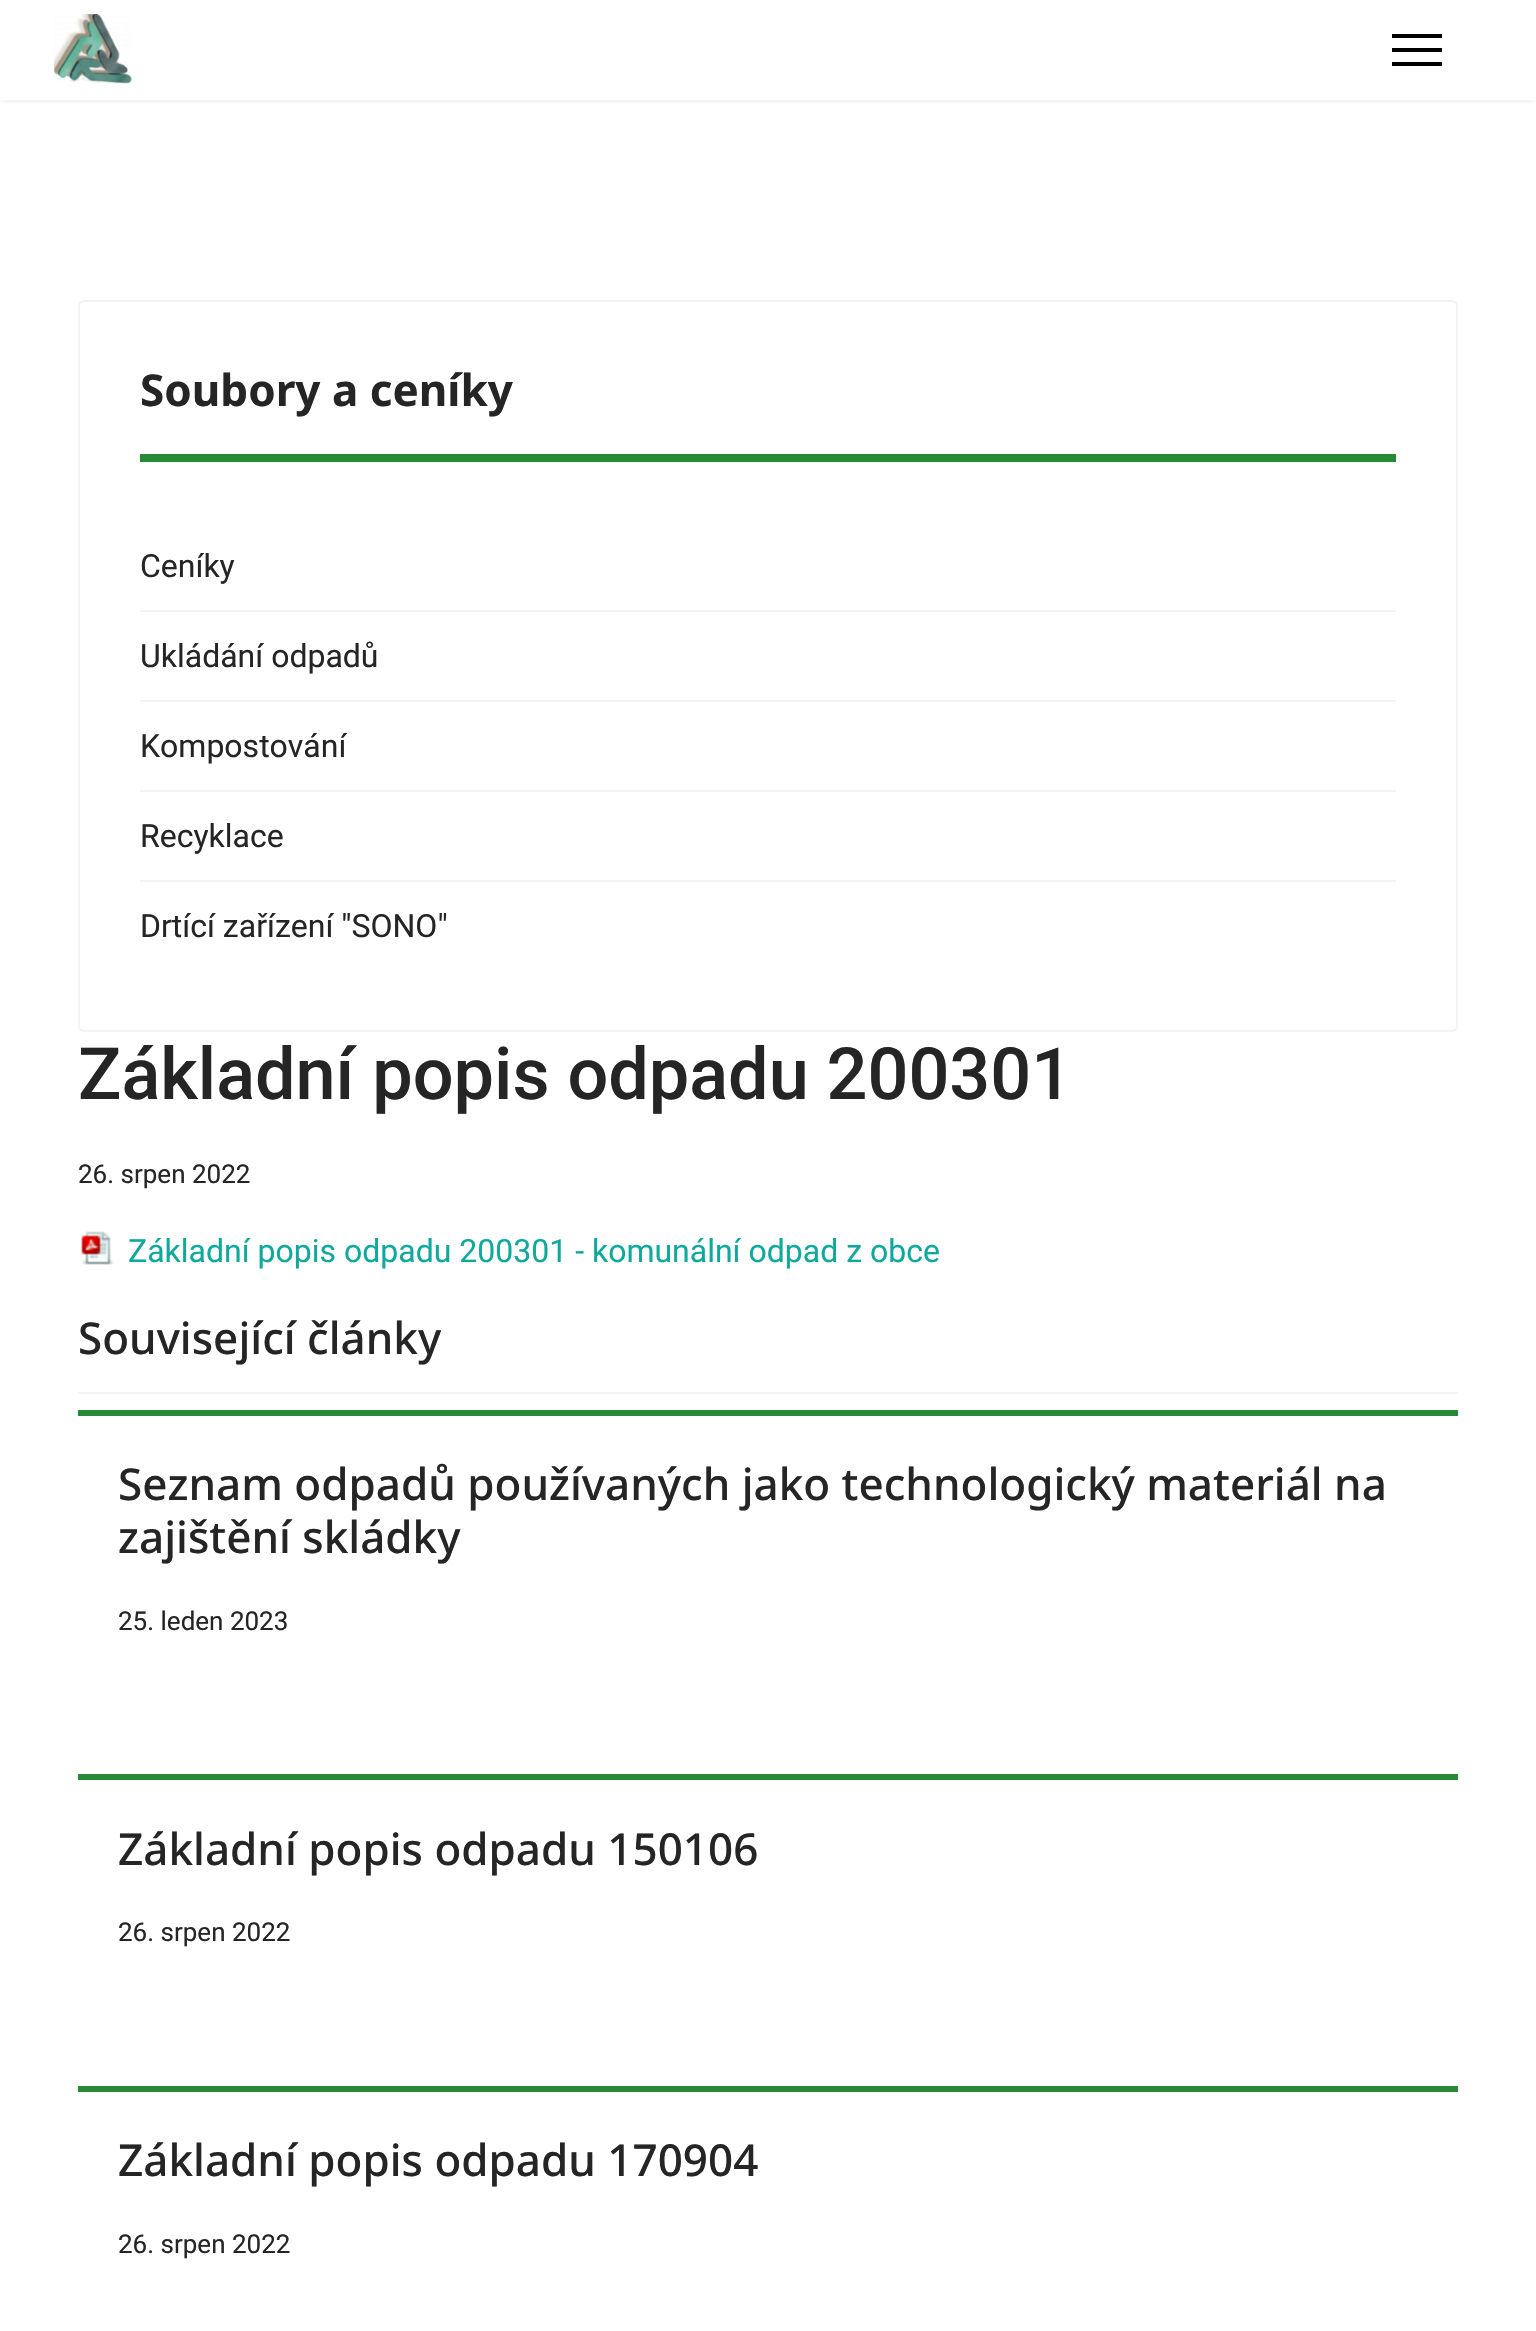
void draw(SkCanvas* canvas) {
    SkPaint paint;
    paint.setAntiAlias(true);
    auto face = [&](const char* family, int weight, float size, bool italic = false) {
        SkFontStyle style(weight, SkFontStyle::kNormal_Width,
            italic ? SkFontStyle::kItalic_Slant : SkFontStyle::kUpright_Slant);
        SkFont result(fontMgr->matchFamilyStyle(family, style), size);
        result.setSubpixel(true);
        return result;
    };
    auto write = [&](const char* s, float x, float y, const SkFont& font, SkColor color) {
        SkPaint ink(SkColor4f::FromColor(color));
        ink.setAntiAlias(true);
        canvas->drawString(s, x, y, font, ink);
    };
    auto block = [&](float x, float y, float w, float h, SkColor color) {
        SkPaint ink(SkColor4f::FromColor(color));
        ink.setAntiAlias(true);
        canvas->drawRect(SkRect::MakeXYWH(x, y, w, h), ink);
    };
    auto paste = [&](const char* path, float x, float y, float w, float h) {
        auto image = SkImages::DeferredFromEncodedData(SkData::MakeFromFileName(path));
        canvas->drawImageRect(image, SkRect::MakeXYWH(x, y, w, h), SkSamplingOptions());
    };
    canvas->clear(SK_ColorWHITE);
    canvas->save();
    canvas->clipRect(SkRect::MakeXYWH(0, 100, 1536, 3));
    paint.setColor(SkColorSetARGB(26, 0, 0, 0));
    paint.setMaskFilter(SkMaskFilter::MakeBlur(kNormal_SkBlurStyle, 4));
    canvas->drawRect(SkRect::MakeXYWH(0, 0, 1536, 100), paint);
    paint.setMaskFilter(nullptr);
    canvas->restore();
    paste("pic1.png", 54, 14, 78, 70);
    block(1392, 34, 50, 4, SK_ColorBLACK);
    block(1392, 48, 50, 4, SK_ColorBLACK);
    block(1392, 62, 50, 4, SK_ColorBLACK);
    paint.setStyle(SkPaint::kStroke_Style);
    paint.setStrokeWidth(2);
    paint.setColor(SkColorSetRGB(243, 243, 243));
    canvas->drawRoundRect(SkRect::MakeXYWH(79, 301, 1378, 730), 5, 5, paint);
    block(140, 454, 1256, 8, SkColorSetRGB(40, 138, 53));
    auto kFont1 = face("Noto Sans", 700, 44);
    write("Soubory a ceníky", 140, 406, kFont1, SkColorSetRGB(37, 37, 37));
    block(140, 610, 1256, 2, SkColorSetRGB(243, 243, 243));
    auto kFont2 = face("Roboto", 400, 32);
    write("Ceníky", 140, 577, kFont2, SkColorSetRGB(37, 37, 37));
    block(140, 700, 1256, 2, SkColorSetRGB(243, 243, 243));
    write("Ukládání odpadů", 140, 667, kFont2, SkColorSetRGB(37, 37, 37));
    block(140, 790, 1256, 2, SkColorSetRGB(243, 243, 243));
    write("Kompostování", 140, 757, kFont2, SkColorSetRGB(37, 37, 37));
    block(140, 880, 1256, 2, SkColorSetRGB(243, 243, 243));
    write("Recyklace", 140, 847, kFont2, SkColorSetRGB(37, 37, 37));
    write("Drtící zařízení \"SONO\"", 140, 937, kFont2, SkColorSetRGB(37, 37, 37));
    auto kFont3 = face("Roboto", 500, 72);
    write("Základní popis odpadu 200301", 78, 1099, kFont3, SkColorSetRGB(37, 37, 37));
    auto kFont4 = face("Roboto", 400, 26);
    write("26. srpen 2022", 78, 1183, kFont4, SkColorSetRGB(37, 37, 37));
    paste("pic2.png", 81, 1231, 33, 34);
    write("Základní popis odpadu 200301 - komunální odpad z obce", 128, 1262, kFont2, SkColorSetRGB(15, 168, 157));
    block(78, 1392, 1380, 2, SkColorSetRGB(243, 243, 243));
    auto kFont5 = face("Noto Sans", 500, 44);
    write("Související články", 78, 1354, kFont5, SkColorSetRGB(37, 37, 37));
    block(78, 1410, 1380, 6, SkColorSetRGB(40, 138, 53));
    write("Seznam odpadů používaných jako technologický materiál na", 118, 1500, kFont5, SkColorSetRGB(37, 37, 37));
    write("zajištění skládky", 118, 1553, kFont5, SkColorSetRGB(37, 37, 37));
    write("25. leden 2023", 118, 1630, kFont4, SkColorSetRGB(37, 37, 37));
    block(78, 1774, 1380, 6, SkColorSetRGB(40, 138, 53));
    write("Základní popis odpadu 150106", 118, 1865, kFont5, SkColorSetRGB(37, 37, 37));
    write("26. srpen 2022", 118, 1941, kFont4, SkColorSetRGB(37, 37, 37));
    block(78, 2086, 1380, 6, SkColorSetRGB(40, 138, 53));
    write("Základní popis odpadu 170904", 118, 2176, kFont5, SkColorSetRGB(37, 37, 37));
    write("26. srpen 2022", 118, 2253, kFont4, SkColorSetRGB(37, 37, 37));
}
